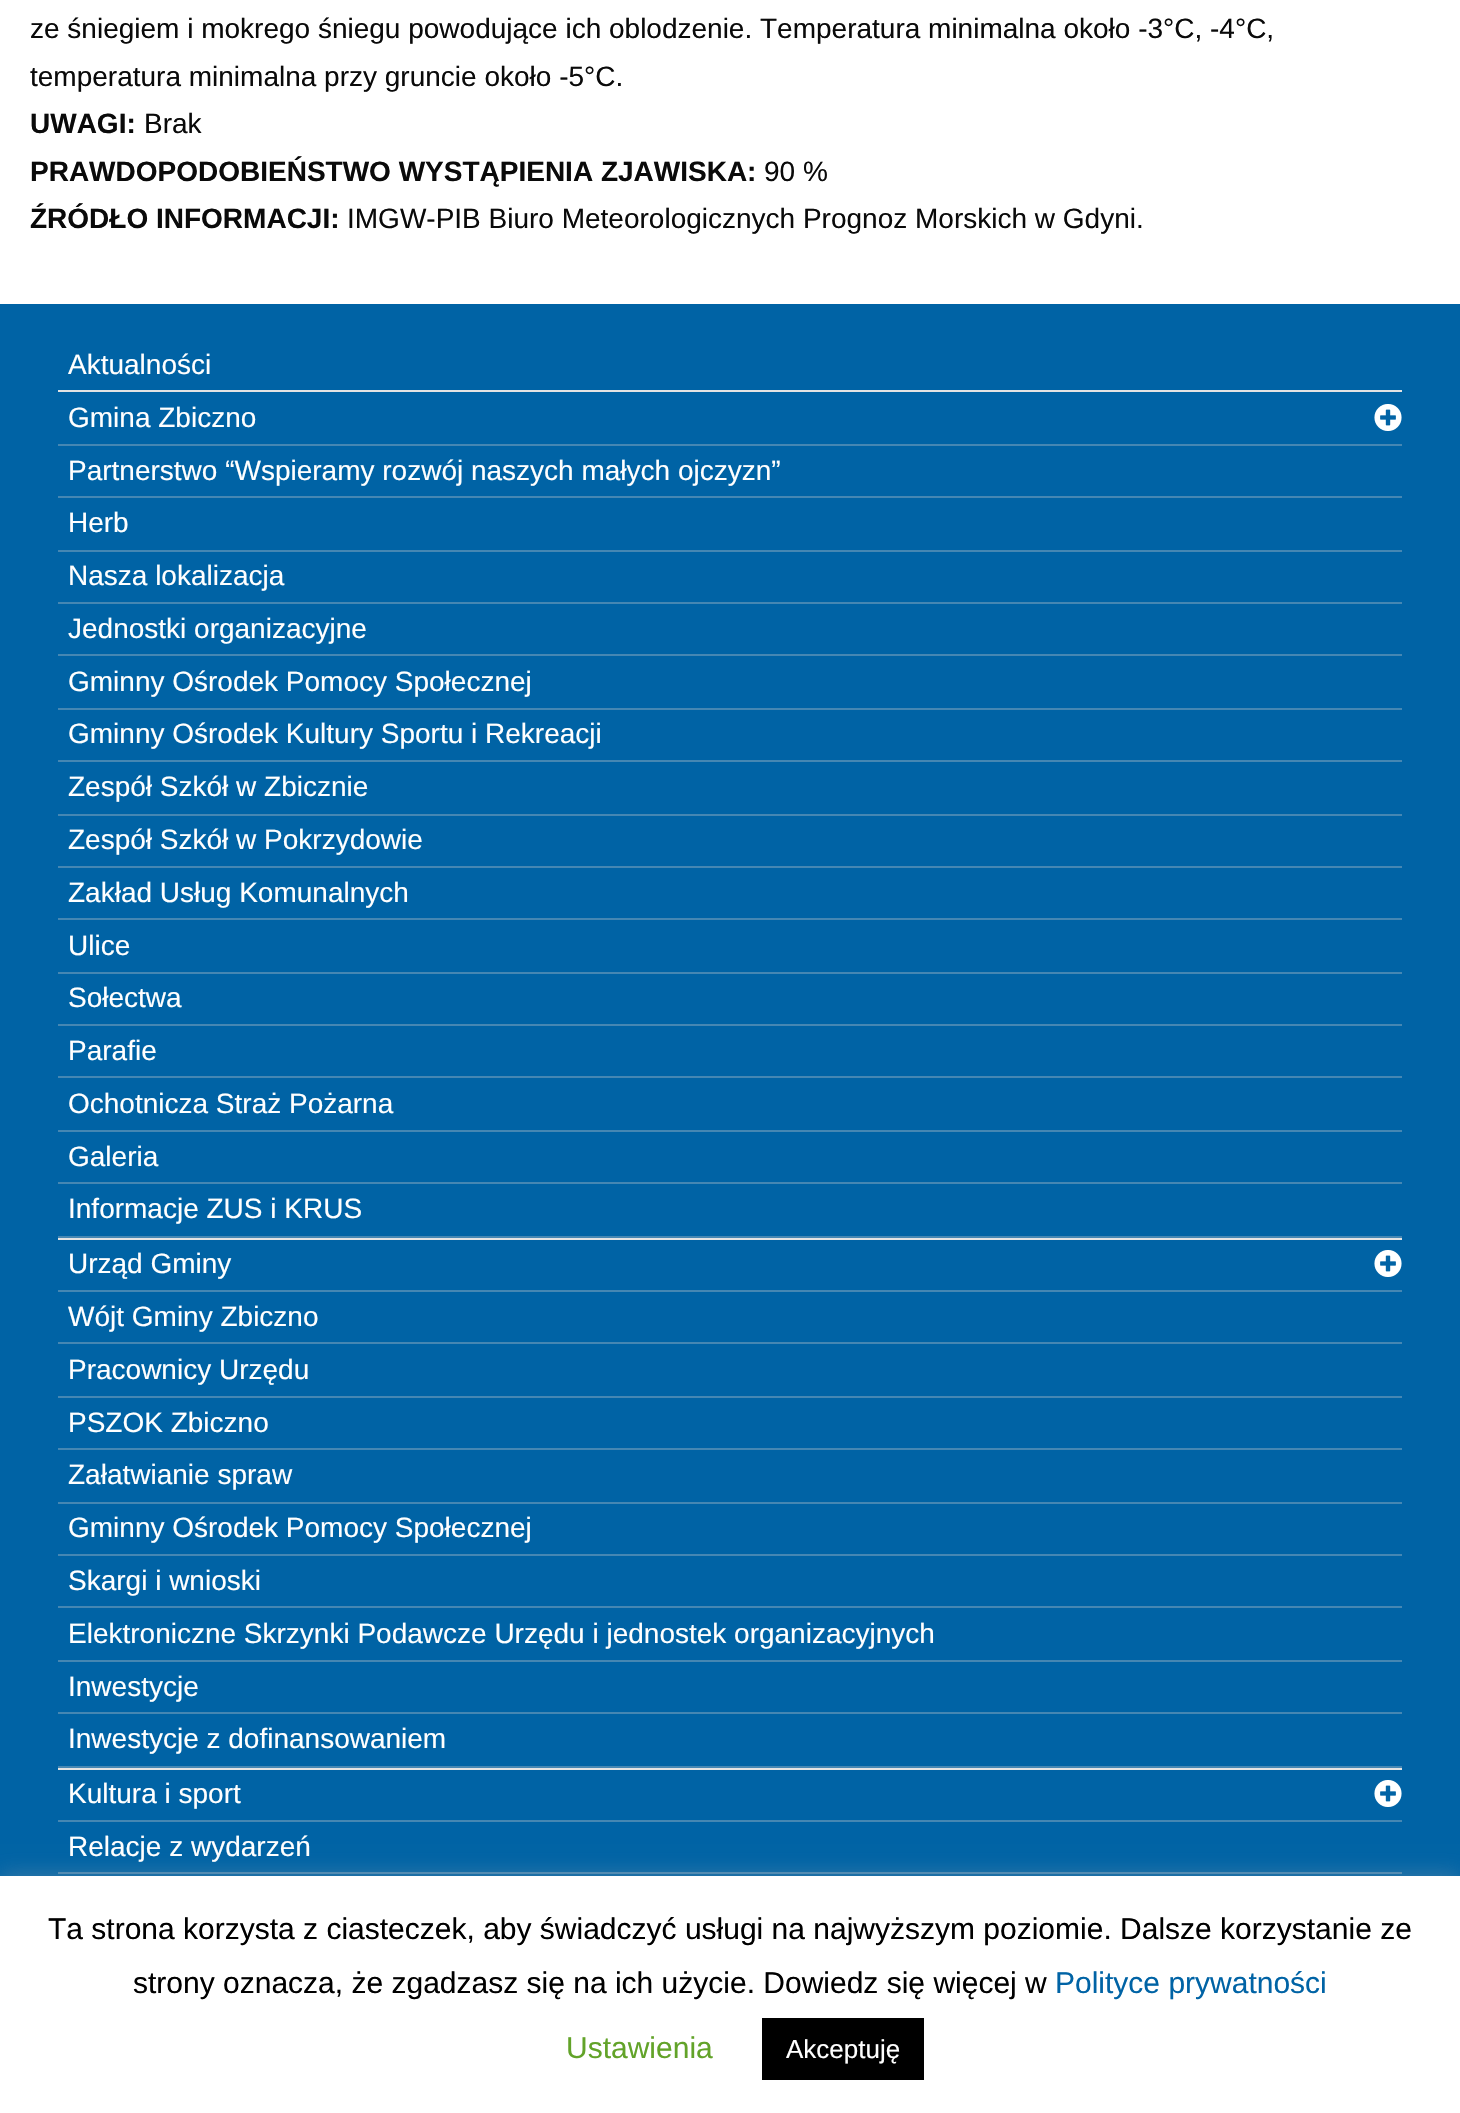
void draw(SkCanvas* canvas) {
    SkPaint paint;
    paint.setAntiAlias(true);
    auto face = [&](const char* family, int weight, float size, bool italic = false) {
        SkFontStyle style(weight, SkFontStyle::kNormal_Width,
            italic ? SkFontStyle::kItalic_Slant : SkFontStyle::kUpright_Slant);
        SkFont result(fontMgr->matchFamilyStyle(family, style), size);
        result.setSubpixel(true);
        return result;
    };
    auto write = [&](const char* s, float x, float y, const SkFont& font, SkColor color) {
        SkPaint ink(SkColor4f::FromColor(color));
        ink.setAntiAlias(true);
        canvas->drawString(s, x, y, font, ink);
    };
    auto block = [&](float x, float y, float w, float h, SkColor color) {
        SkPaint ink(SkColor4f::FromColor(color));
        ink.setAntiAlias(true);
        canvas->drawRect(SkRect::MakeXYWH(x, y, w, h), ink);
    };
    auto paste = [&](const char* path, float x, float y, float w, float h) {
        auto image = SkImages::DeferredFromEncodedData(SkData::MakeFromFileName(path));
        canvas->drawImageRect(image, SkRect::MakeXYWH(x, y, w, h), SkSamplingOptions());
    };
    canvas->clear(SK_ColorWHITE);
    auto kFont1 = face("Liberation Sans", 400, 28);
    write("ze śniegiem i mokrego śniegu powodujące ich oblodzenie. Temperatura minimalna około -3°C, -4°C,", 30, 38, kFont1, SkColorSetRGB(10, 10, 10));
    write("temperatura minimalna przy gruncie około -5°C.", 30, 86, kFont1, SkColorSetRGB(10, 10, 10));
    auto kFont2 = face("Liberation Sans", 700, 28);
    write("UWAGI:", 30, 133, kFont2, SkColorSetRGB(10, 10, 10));
    write("Brak", 144, 133, kFont1, SkColorSetRGB(10, 10, 10));
    write("PRAWDOPODOBIEŃSTWO WYSTĄPIENIA ZJAWISKA:", 30, 181, kFont2, SkColorSetRGB(10, 10, 10));
    write("90 %", 764, 181, kFont1, SkColorSetRGB(10, 10, 10));
    write("ŹRÓDŁO INFORMACJI:", 30, 228, kFont2, SkColorSetRGB(10, 10, 10));
    write("IMGW-PIB Biuro Meteorologicznych Prognoz Morskich w Gdyni.", 347, 228, kFont1, SkColorSetRGB(10, 10, 10));
    block(0, 304, 1460, 1572, SkColorSetRGB(0, 99, 165));
    write("Aktualności", 68, 374, kFont1, SK_ColorWHITE);
    block(58, 390, 1344, 2, SkColorSetRGB(227, 227, 227));
    write("Gmina Zbiczno", 68, 427, kFont1, SK_ColorWHITE);
    paste("pic1.png", 1374, 404, 28, 27);
    block(58, 444, 1344, 2, SkColorSetRGB(69, 135, 179));
    block(58, 496, 1344, 2, SkColorSetRGB(69, 135, 179));
    write("Partnerstwo “Wspieramy rozwój naszych małych ojczyzn”", 68, 480, kFont1, SK_ColorWHITE);
    block(58, 550, 1344, 2, SkColorSetRGB(69, 135, 179));
    write("Herb", 68, 532, kFont1, SK_ColorWHITE);
    block(58, 602, 1344, 2, SkColorSetRGB(69, 135, 179));
    write("Nasza lokalizacja", 68, 585, kFont1, SK_ColorWHITE);
    block(58, 918, 1344, 2, SkColorSetRGB(69, 135, 179));
    write("Jednostki organizacyjne", 68, 638, kFont1, SK_ColorWHITE);
    block(58, 654, 1344, 2, SkColorSetRGB(69, 135, 179));
    block(58, 708, 1344, 2, SkColorSetRGB(69, 135, 179));
    write("Gminny Ośrodek Pomocy Społecznej", 68, 691, kFont1, SK_ColorWHITE);
    block(58, 760, 1344, 2, SkColorSetRGB(69, 135, 179));
    write("Gminny Ośrodek Kultury Sportu i Rekreacji", 68, 743, kFont1, SK_ColorWHITE);
    block(58, 814, 1344, 2, SkColorSetRGB(69, 135, 179));
    write("Zespół Szkół w Zbicznie", 68, 796, kFont1, SK_ColorWHITE);
    block(58, 866, 1344, 2, SkColorSetRGB(69, 135, 179));
    write("Zespół Szkół w Pokrzydowie", 68, 849, kFont1, SK_ColorWHITE);
    write("Zakład Usług Komunalnych", 68, 902, kFont1, SK_ColorWHITE);
    block(58, 972, 1344, 2, SkColorSetRGB(69, 135, 179));
    write("Ulice", 68, 955, kFont1, SK_ColorWHITE);
    block(58, 1024, 1344, 2, SkColorSetRGB(69, 135, 179));
    write("Sołectwa", 68, 1007, kFont1, SK_ColorWHITE);
    block(58, 1076, 1344, 2, SkColorSetRGB(69, 135, 179));
    write("Parafie", 68, 1060, kFont1, SK_ColorWHITE);
    block(58, 1130, 1344, 2, SkColorSetRGB(69, 135, 179));
    write("Ochotnicza Straż Pożarna", 68, 1113, kFont1, SK_ColorWHITE);
    block(58, 1182, 1344, 2, SkColorSetRGB(69, 135, 179));
    write("Galeria", 68, 1166, kFont1, SK_ColorWHITE);
    block(58, 1236, 1344, 2, SkColorSetRGB(69, 135, 179));
    write("Informacje ZUS i KRUS", 68, 1218, kFont1, SK_ColorWHITE);
    block(58, 1238, 1344, 2, SkColorSetRGB(227, 227, 227));
    write("Urząd Gminy", 68, 1273, kFont1, SK_ColorWHITE);
    paste("pic1.png", 1374, 1250, 28, 27);
    block(58, 1290, 1344, 2, SkColorSetRGB(69, 135, 179));
    block(58, 1342, 1344, 2, SkColorSetRGB(69, 135, 179));
    write("Wójt Gminy Zbiczno", 68, 1326, kFont1, SK_ColorWHITE);
    block(58, 1396, 1344, 2, SkColorSetRGB(69, 135, 179));
    write("Pracownicy Urzędu", 68, 1379, kFont1, SK_ColorWHITE);
    block(58, 1448, 1344, 2, SkColorSetRGB(69, 135, 179));
    write("PSZOK Zbiczno", 68, 1432, kFont1, SK_ColorWHITE);
    block(58, 1606, 1344, 2, SkColorSetRGB(69, 135, 179));
    write("Załatwianie spraw", 68, 1484, kFont1, SK_ColorWHITE);
    block(58, 1502, 1344, 2, SkColorSetRGB(69, 135, 179));
    block(58, 1554, 1344, 2, SkColorSetRGB(69, 135, 179));
    write("Gminny Ośrodek Pomocy Społecznej", 68, 1537, kFont1, SK_ColorWHITE);
    write("Skargi i wnioski", 68, 1590, kFont1, SK_ColorWHITE);
    block(58, 1660, 1344, 2, SkColorSetRGB(69, 135, 179));
    write("Elektroniczne Skrzynki Podawcze Urzędu i jednostek organizacyjnych", 68, 1643, kFont1, SK_ColorWHITE);
    block(58, 1766, 1344, 2, SkColorSetRGB(69, 135, 179));
    write("Inwestycje", 68, 1696, kFont1, SK_ColorWHITE);
    block(58, 1712, 1344, 2, SkColorSetRGB(69, 135, 179));
    write("Inwestycje z dofinansowaniem", 68, 1748, kFont1, SK_ColorWHITE);
    block(58, 1768, 1344, 2, SkColorSetRGB(227, 227, 227));
    write("Kultura i sport", 68, 1803, kFont1, SK_ColorWHITE);
    paste("pic1.png", 1374, 1780, 28, 27);
    block(58, 1820, 1344, 2, SkColorSetRGB(69, 135, 179));
    block(58, 1872, 1344, 2, SkColorSetRGB(69, 135, 179));
    write("Relacje z wydarzeń", 68, 1856, kFont1, SK_ColorWHITE);
    paint.setColor(SkColorSetARGB(77, 172, 171, 171));
    paint.setMaskFilter(SkMaskFilter::MakeBlur(kNormal_SkBlurStyle, 10));
    canvas->drawRect(SkRect::MakeXYWH(0, 1874, 1460, 238), paint);
    paint.setMaskFilter(nullptr);
    block(0, 1876, 1460, 237, SK_ColorWHITE);
    auto kFont3 = face("Liberation Sans", 400, 30);
    write("Ta strona korzysta z ciasteczek, aby świadczyć usługi na najwyższym poziomie. Dalsze korzystanie ze", 48, 1939, kFont3, SK_ColorBLACK);
    write("strony oznacza, że zgadzasz się na ich użycie. Dowiedz się więcej w", 133, 1993, kFont3, SK_ColorBLACK);
    write("Polityce prywatności", 1055, 1993, kFont3, SkColorSetRGB(0, 99, 165));
    write("Ustawienia", 566, 2058, kFont3, SkColorSetRGB(98, 163, 41));
    block(762, 2018, 162, 62, SK_ColorBLACK);
    auto kFont4 = face("Liberation Sans", 400, 26);
    write("Akceptuję", 786, 2058, kFont4, SK_ColorWHITE);
}
